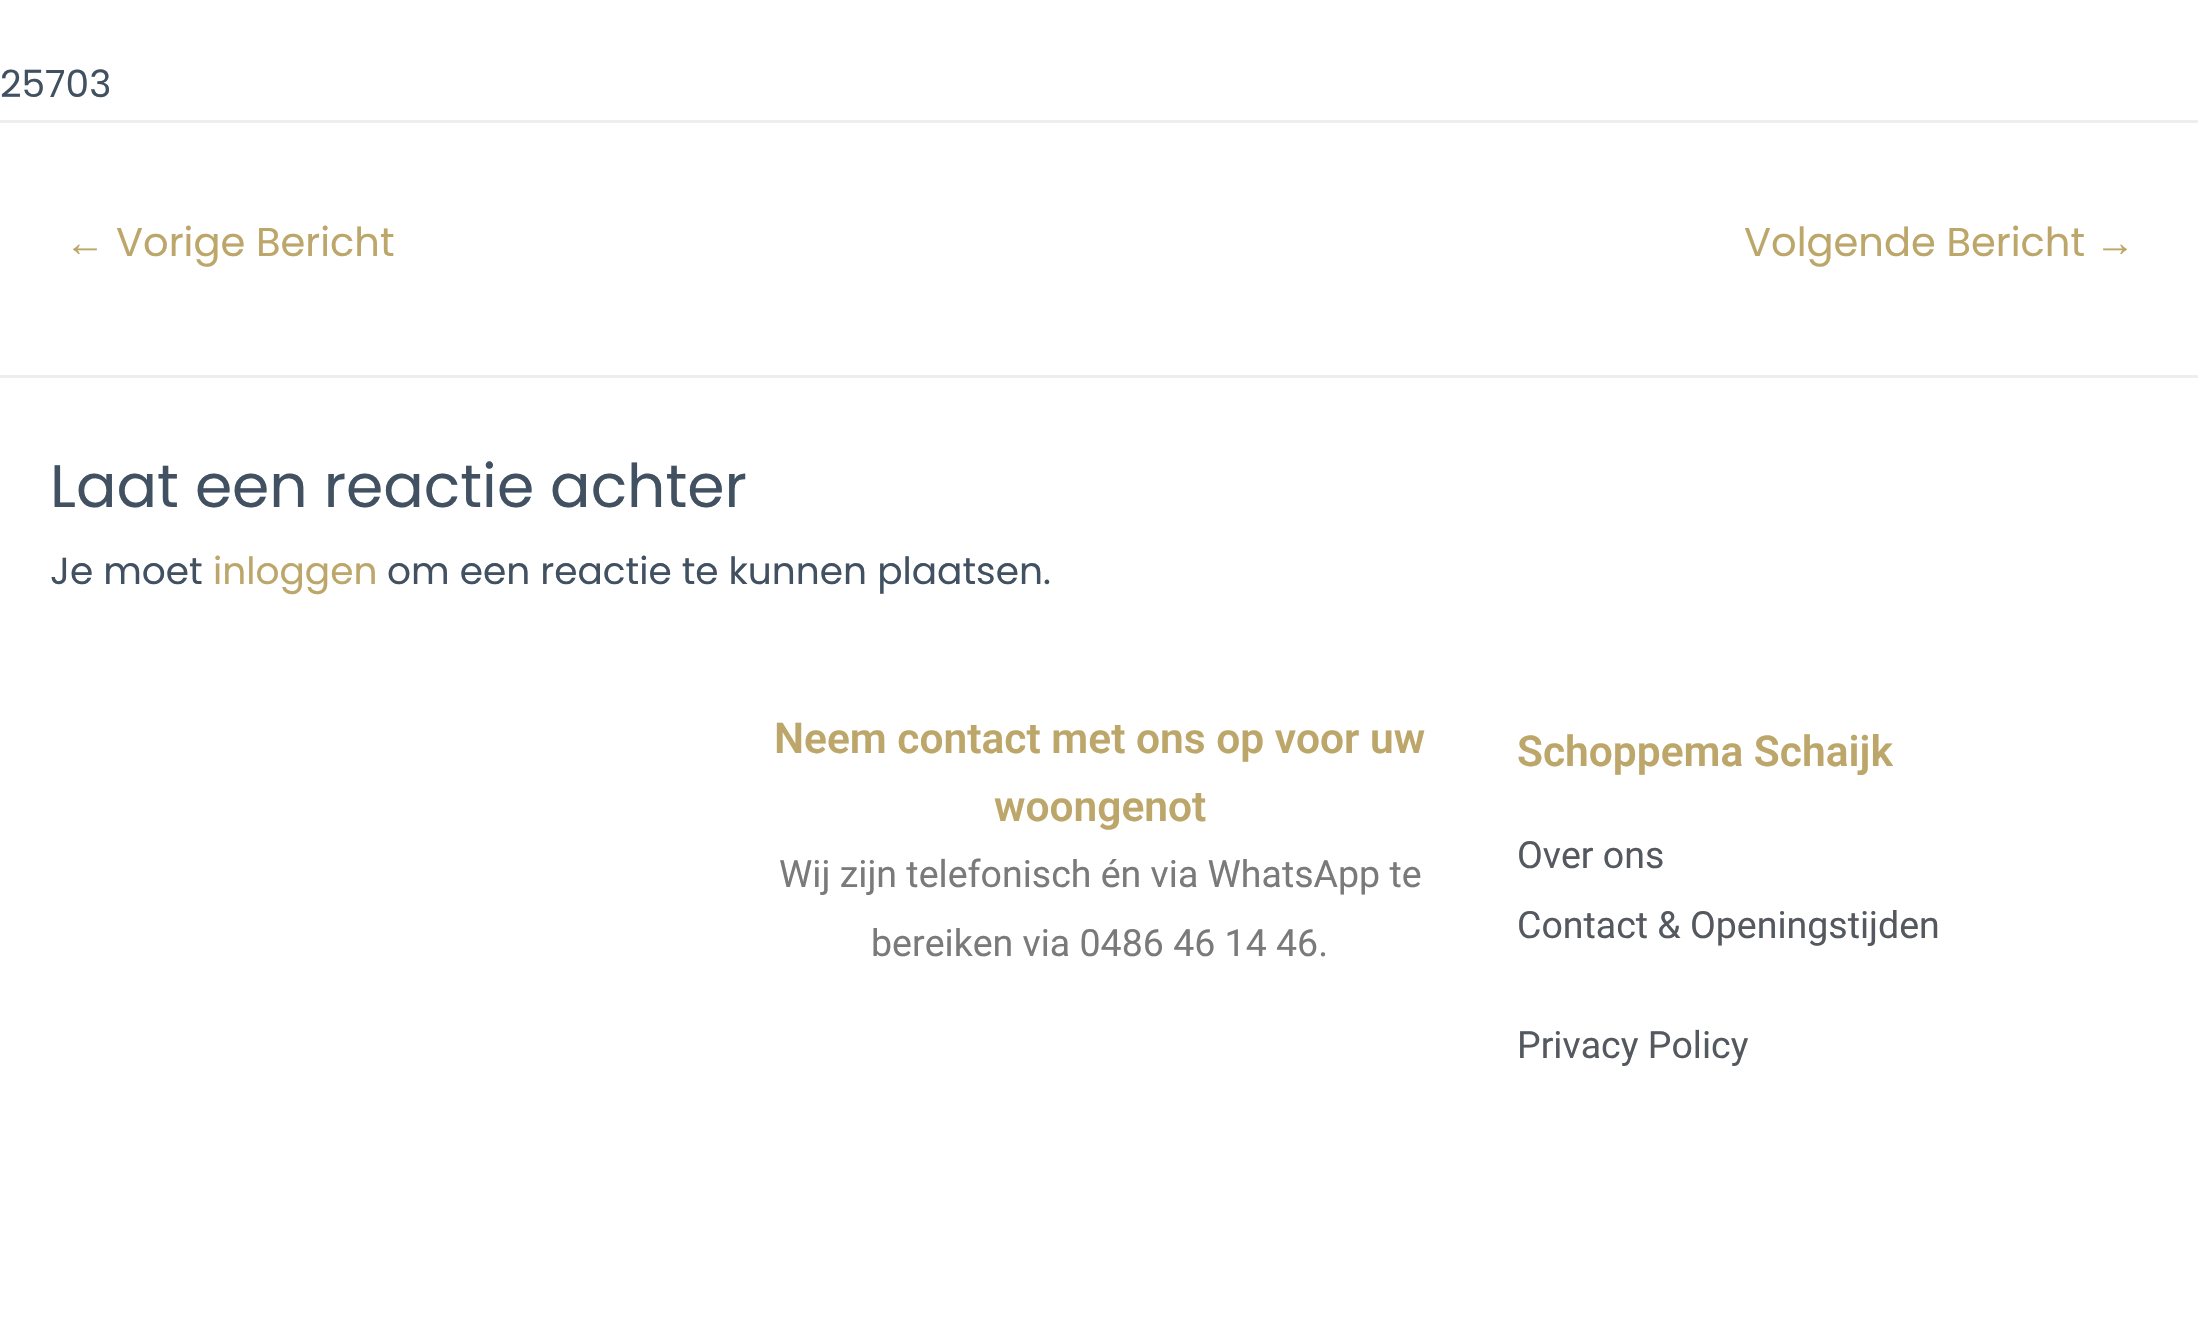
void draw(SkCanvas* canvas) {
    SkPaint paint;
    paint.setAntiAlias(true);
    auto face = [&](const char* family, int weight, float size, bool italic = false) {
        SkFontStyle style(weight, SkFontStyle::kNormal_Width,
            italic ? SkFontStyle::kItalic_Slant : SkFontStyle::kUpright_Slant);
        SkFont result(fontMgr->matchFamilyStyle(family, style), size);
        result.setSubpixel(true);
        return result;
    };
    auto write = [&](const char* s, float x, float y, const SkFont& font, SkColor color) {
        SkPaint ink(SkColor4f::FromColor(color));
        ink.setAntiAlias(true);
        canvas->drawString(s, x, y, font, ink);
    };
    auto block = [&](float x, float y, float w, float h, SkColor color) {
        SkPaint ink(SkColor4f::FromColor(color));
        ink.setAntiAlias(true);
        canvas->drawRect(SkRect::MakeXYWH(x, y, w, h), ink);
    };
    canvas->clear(SK_ColorWHITE);
    auto kFont1 = face("Poppins", 400, 37.5f);
    write("25703", 0, 97, kFont1, SkColorSetRGB(65, 81, 97));
    block(0, 120, 2198, 3, SkColorSetRGB(238, 238, 238));
    auto kFont2 = face("Liberation Sans", 400, 40);
    write("←", 65, 256, kFont2, SkColorSetRGB(188, 166, 106));
    auto kFont3 = face("Poppins", 400, 40);
    write("Vorige Bericht", 116, 256, kFont3, SkColorSetRGB(188, 166, 106));
    write("Volgende Bericht", 1744, 256, kFont3, SkColorSetRGB(188, 166, 106));
    write("→", 2095, 256, kFont2, SkColorSetRGB(188, 166, 106));
    block(0, 375, 2198, 3, SkColorSetRGB(238, 238, 238));
    auto kFont4 = face("Poppins", 400, 60);
    write("Laat een reactie achter", 50, 507, kFont4, SkColorSetRGB(65, 81, 97));
    write("Je moet", 50, 584, kFont1, SkColorSetRGB(65, 81, 97));
    write("inloggen", 213, 584, kFont1, SkColorSetRGB(188, 166, 106));
    write("om een reactie te kunnen plaatsen.", 387, 584, kFont1, SkColorSetRGB(65, 81, 97));
    auto kFont5 = face("Roboto", 600, 42.5f);
    write("Neem contact met ons op voor uw", 774, 753, kFont5, SkColorSetRGB(188, 166, 106));
    write("woongenot", 994, 821, kFont5, SkColorSetRGB(188, 166, 106));
    auto kFont6 = face("Roboto", 400, 37.5f);
    write("Wij zijn telefonisch én via WhatsApp te", 779, 887, kFont6, SkColorSetRGB(122, 122, 122));
    write("bereiken via 0486 46 14 46.", 871, 956, kFont6, SkColorSetRGB(122, 122, 122));
    write("Schoppema Schaijk", 1517, 766, kFont5, SkColorSetRGB(188, 166, 106));
    write("Over ons", 1517, 868, kFont6, SkColorSetRGB(84, 89, 95));
    write("Contact & Openingstijden", 1517, 938, kFont6, SkColorSetRGB(84, 89, 95));
    write("Privacy Policy", 1517, 1058, kFont6, SkColorSetRGB(84, 89, 95));
}
